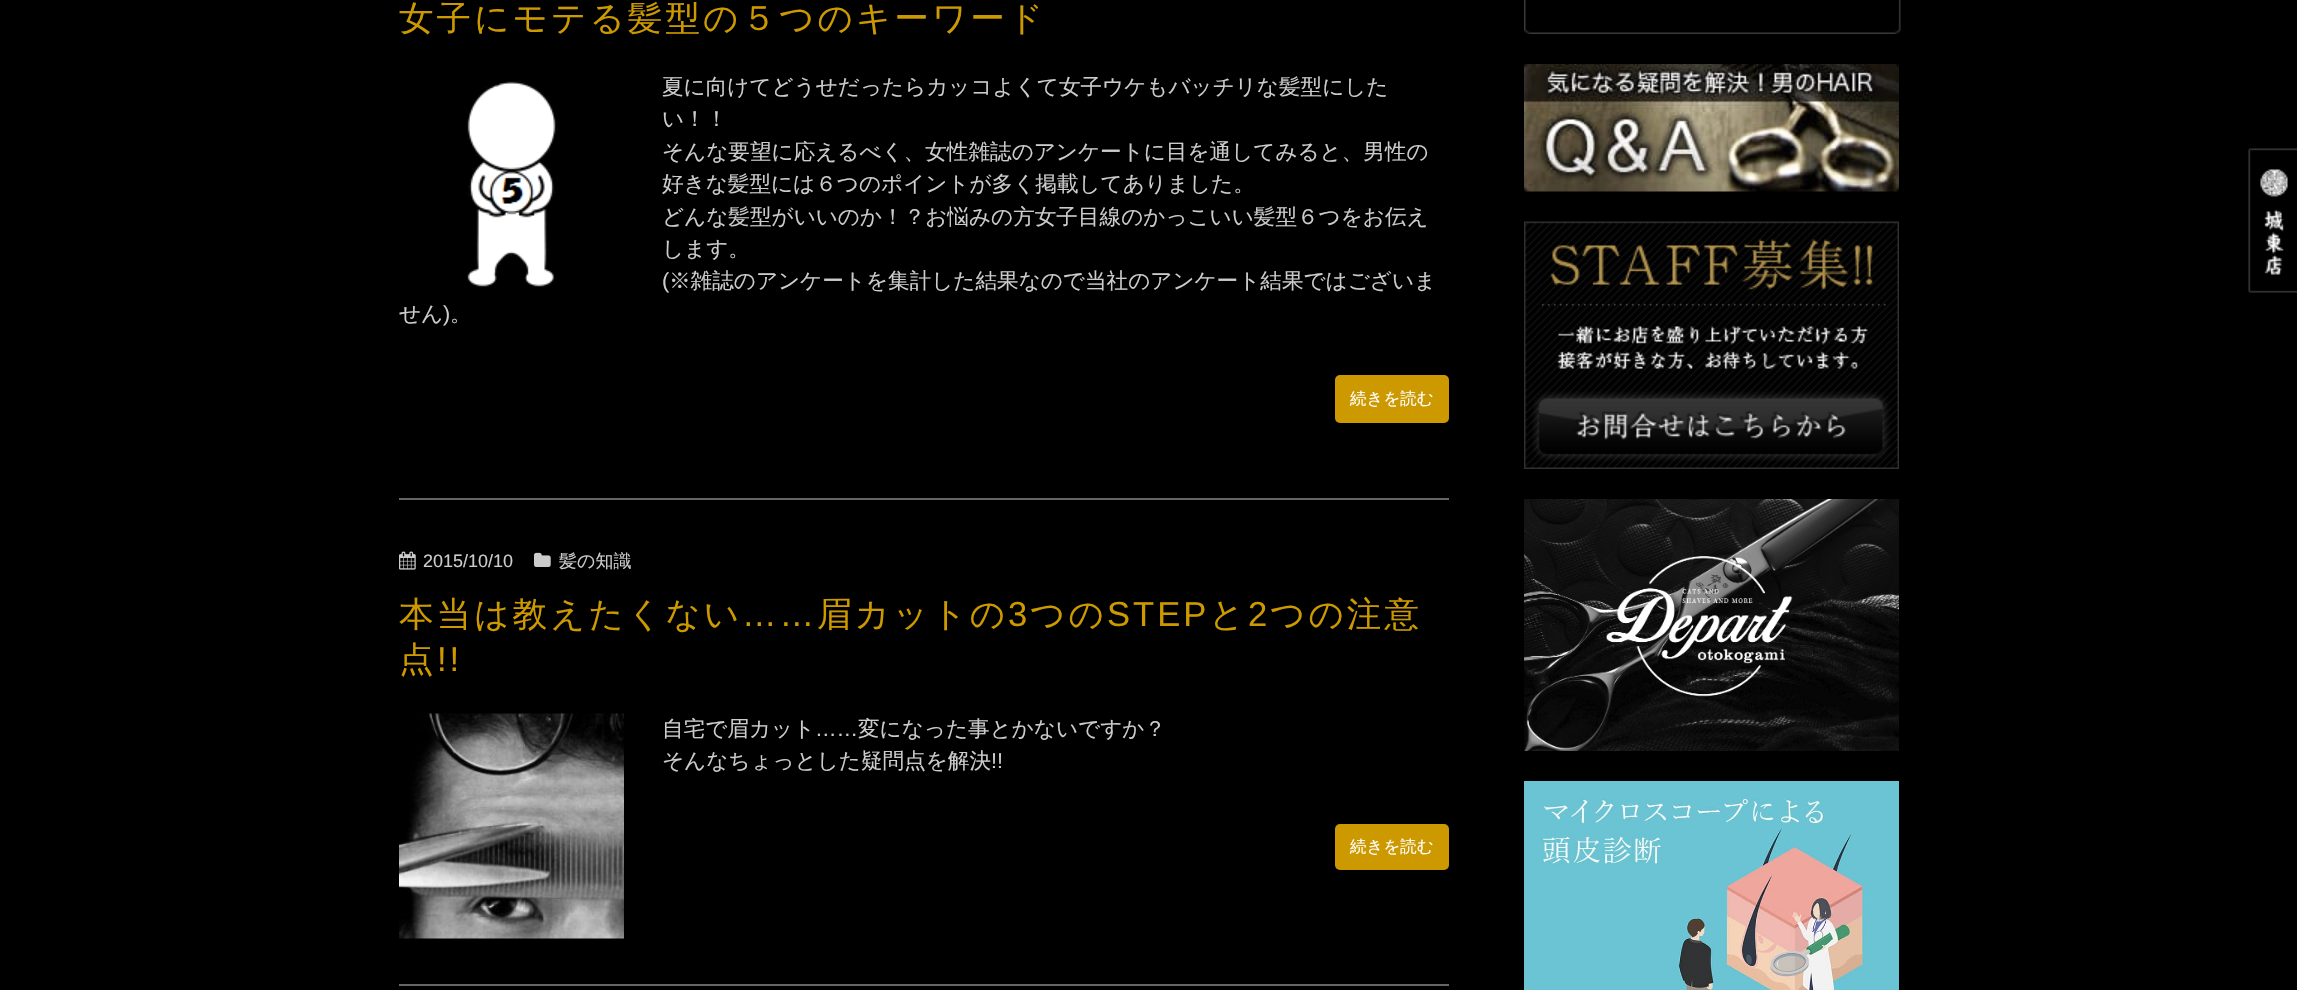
void draw(SkCanvas* canvas) {
    SkPaint paint;
    paint.setAntiAlias(true);
    auto face = [&](const char* family, int weight, float size, bool italic = false) {
        SkFontStyle style(weight, SkFontStyle::kNormal_Width,
            italic ? SkFontStyle::kItalic_Slant : SkFontStyle::kUpright_Slant);
        SkFont result(fontMgr->matchFamilyStyle(family, style), size);
        result.setSubpixel(true);
        return result;
    };
    auto write = [&](const char* s, float x, float y, const SkFont& font, SkColor color) {
        SkPaint ink(SkColor4f::FromColor(color));
        ink.setAntiAlias(true);
        canvas->drawString(s, x, y, font, ink);
    };
    auto writeSpaced = [&](const char* s, float x, float y, const SkFont& font, const SkPaint& ink, float letter, float word) {
        std::vector<SkGlyphID> glyphs(font.countText(s, strlen(s), SkTextEncoding::kUTF8));
        std::vector<float> xs(glyphs.size());
        font.textToGlyphs(s, strlen(s), SkTextEncoding::kUTF8, glyphs);
        font.getXPos(glyphs, xs, x);
        float extra = 0;
        for (size_t i = 0; i < glyphs.size(); i++) {
            xs[i] += extra;
            extra += letter + word * (glyphs[i] == font.unicharToGlyph(' '));
        }
        canvas->drawTextBlob(SkTextBlob::MakeFromPosHGlyphs(glyphs, xs, y, font), 0, 0, ink);
    };
    auto block = [&](float x, float y, float w, float h, SkColor color) {
        SkPaint ink(SkColor4f::FromColor(color));
        ink.setAntiAlias(true);
        canvas->drawRect(SkRect::MakeXYWH(x, y, w, h), ink);
    };
    auto card = [&](float x, float y, float w, float h, float radius, SkColor color) {
        SkPaint ink(SkColor4f::FromColor(color));
        ink.setAntiAlias(true);
        canvas->drawRoundRect(SkRect::MakeXYWH(x, y, w, h), radius, radius, ink);
    };
    auto paste = [&](const char* path, float x, float y, float w, float h) {
        auto image = SkImages::DeferredFromEncodedData(SkData::MakeFromFileName(path));
        canvas->drawImageRect(image, SkRect::MakeXYWH(x, y, w, h), SkSamplingOptions());
    };
    canvas->clear(SK_ColorBLACK);
    block(399, 498, 1050, 2, SkColorSetRGB(102, 102, 102));
    auto kFont1 = face("WenQuanYi Zen Hei", 500, 34.6f);
    paint.setColor(SkColorSetRGB(204, 153, 0));
    writeSpaced("女子にモテる髪型の５つのキーワード", 399, 30, kFont1, paint, 3, 0);
    auto kFont2 = face("WenQuanYi Zen Hei", 500, 21.6f);
    write("夏に向けてどうせだったらカッコよくて女子ウケもバッチリな髪型にした", 662, 94, kFont2, SkColorSetRGB(204, 204, 204));
    write("い！！", 662, 126, kFont2, SkColorSetRGB(204, 204, 204));
    write("そんな要望に応えるべく、女性雑誌のアンケートに目を通してみると、男性の", 662, 159, kFont2, SkColorSetRGB(204, 204, 204));
    write("好きな髪型には６つのポイントが多く掲載してありました。", 662, 191, kFont2, SkColorSetRGB(204, 204, 204));
    write("どんな髪型がいいのか！？お悩みの方女子目線のかっこいい髪型６つをお伝え", 662, 224, kFont2, SkColorSetRGB(204, 204, 204));
    write("します。", 662, 256, kFont2, SkColorSetRGB(204, 204, 204));
    auto kFont3 = face("Liberation Sans", 400, 21.6f);
    write("(", 662, 288, kFont3, SkColorSetRGB(204, 204, 204));
    write("※雑誌のアンケートを集計した結果なので当社のアンケート結果ではございま", 669, 288, kFont2, SkColorSetRGB(204, 204, 204));
    write("せん", 399, 321, kFont2, SkColorSetRGB(204, 204, 204));
    write(")", 443, 321, kFont3, SkColorSetRGB(204, 204, 204));
    write("。", 450, 321, kFont2, SkColorSetRGB(204, 204, 204));
    paste("pic1.png", 467, 80, 91, 207);
    card(1335, 375, 114, 48, 5, SkColorSetRGB(204, 153, 0));
    auto kFont4 = face("WenQuanYi Zen Hei", 500, 16.5f);
    write("続きを読む", 1350, 404, kFont4, SK_ColorWHITE);
    block(399, 984, 1050, 2, SkColorSetRGB(102, 102, 102));
    paste("pic2.png", 399, 551, 17, 19);
    auto kFont5 = face("Liberation Sans", 400, 18);
    write("2015/10/10", 423, 567, kFont5, SkColorSetRGB(204, 204, 204));
    paste("pic3.png", 534, 552, 17, 15);
    auto kFont6 = face("WenQuanYi Zen Hei", 500, 18);
    write("髪の知識", 559, 567, kFont6, SkColorSetRGB(204, 204, 204));
    writeSpaced("本当は教えたくない", 399, 626, kFont1, paint, 3, 0);
    auto kFont7 = face("Liberation Sans", 400, 34.6f);
    writeSpaced("……", 742, 626, kFont7, paint, 3, 0);
    writeSpaced("眉カットの", 817, 626, kFont1, paint, 3, 0);
    writeSpaced("3", 1008, 626, kFont7, paint, 3, 0);
    writeSpaced("つの", 1030, 626, kFont1, paint, 3, 0);
    writeSpaced("STEP", 1107, 626, kFont7, paint, 3, 0);
    writeSpaced("と", 1209, 626, kFont1, paint, 3, 0);
    writeSpaced("2", 1248, 626, kFont7, paint, 3, 0);
    writeSpaced("つの注意", 1270, 626, kFont1, paint, 3, 0);
    writeSpaced("点", 399, 671, kFont1, paint, 3, 0);
    writeSpaced("!!", 437, 671, kFont7, paint, 3, 0);
    paste("pic4.png", 399, 713, 225, 226);
    write("自宅で眉カット", 662, 736, kFont2, SkColorSetRGB(204, 204, 204));
    write("……", 815, 736, kFont3, SkColorSetRGB(204, 204, 204));
    write("変になった事とかないですか？", 858, 736, kFont2, SkColorSetRGB(204, 204, 204));
    write("そんなちょっとした疑問点を解決", 662, 768, kFont2, SkColorSetRGB(204, 204, 204));
    write("!!", 991, 768, kFont3, SkColorSetRGB(204, 204, 204));
    card(1335, 824, 114, 46, 5, SkColorSetRGB(204, 153, 0));
    write("続きを読む", 1350, 852, kFont4, SK_ColorWHITE);
    paste("pic5.png", 1524, 0, 377, 34);
    paste("pic6.png", 1524, 64, 375, 128);
    paste("pic7.png", 1524, 221, 375, 248);
    paste("pic8.png", 1524, 499, 375, 252);
    paste("pic9.png", 1524, 781, 375, 209);
    paste("pic10.png", 2248, 148, 49, 145);
}
